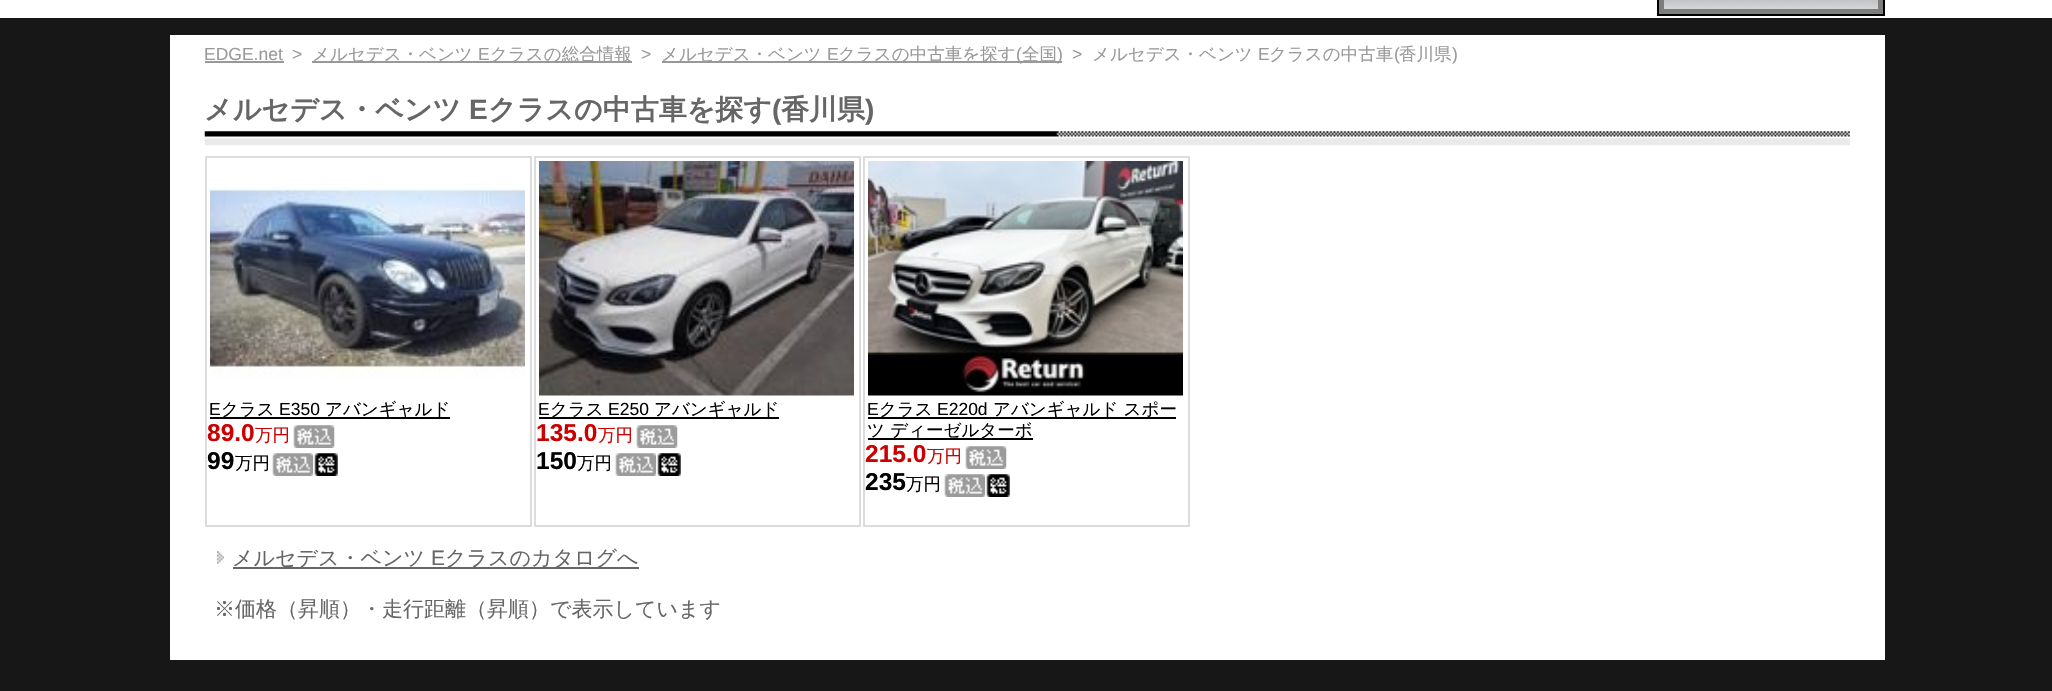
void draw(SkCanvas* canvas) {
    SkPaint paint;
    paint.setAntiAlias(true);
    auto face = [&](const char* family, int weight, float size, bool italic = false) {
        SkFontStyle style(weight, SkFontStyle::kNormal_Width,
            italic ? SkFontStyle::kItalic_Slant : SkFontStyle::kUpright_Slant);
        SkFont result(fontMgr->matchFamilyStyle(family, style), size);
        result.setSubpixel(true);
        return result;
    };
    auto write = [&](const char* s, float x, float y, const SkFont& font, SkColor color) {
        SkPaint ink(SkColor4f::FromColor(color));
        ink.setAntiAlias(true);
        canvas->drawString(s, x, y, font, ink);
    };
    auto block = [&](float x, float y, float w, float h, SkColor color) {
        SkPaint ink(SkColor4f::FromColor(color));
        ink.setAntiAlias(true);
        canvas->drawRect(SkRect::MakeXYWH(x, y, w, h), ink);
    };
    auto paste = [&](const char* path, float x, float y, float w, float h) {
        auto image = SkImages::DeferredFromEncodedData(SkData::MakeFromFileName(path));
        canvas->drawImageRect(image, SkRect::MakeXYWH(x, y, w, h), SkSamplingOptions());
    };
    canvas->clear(SkColorSetRGB(23, 23, 23));
    block(0, 0, 2052, 18, SK_ColorWHITE);
    paste("pic1.png", 1664, 0, 214, 9);
    paint.setStyle(SkPaint::kStroke_Style);
    paint.setStrokeWidth(2);
    paint.setColor(SK_ColorBLACK);
    canvas->drawRect(SkRect::MakeXYWH(1658, -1, 226, 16), paint);
    paint.setStrokeWidth(5);
    paint.setColor(SkColorSetRGB(125, 125, 125));
    canvas->drawRect(SkRect::MakeXYWH(1661.5f, -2.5f, 219, 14), paint);
    block(170, 35, 1715, 625, SK_ColorWHITE);
    auto kFont1 = face("Liberation Sans", 400, 17.5f);
    write("EDGE.net", 204, 60, kFont1, SkColorSetRGB(153, 153, 153));
    block(205, 61, 79, 2, SkColorSetRGB(153, 153, 153));
    write(">", 292, 60, kFont1, SkColorSetRGB(153, 153, 153));
    block(312, 61, 320, 2, SkColorSetRGB(153, 153, 153));
    auto kFont2 = face("WenQuanYi Zen Hei", 500, 17.5f);
    write("メルセデス・ベンツ", 312, 60, kFont2, SkColorSetRGB(153, 153, 153));
    write("E", 478, 60, kFont1, SkColorSetRGB(153, 153, 153));
    write("クラスの総合情報", 490, 60, kFont2, SkColorSetRGB(153, 153, 153));
    write(">", 641, 60, kFont1, SkColorSetRGB(153, 153, 153));
    block(662, 61, 400, 2, SkColorSetRGB(153, 153, 153));
    write("メルセデス・ベンツ", 661, 60, kFont2, SkColorSetRGB(153, 153, 153));
    write("E", 827, 60, kFont1, SkColorSetRGB(153, 153, 153));
    write("クラスの中古車を探す", 838, 60, kFont2, SkColorSetRGB(153, 153, 153));
    write("(", 1016, 60, kFont1, SkColorSetRGB(153, 153, 153));
    write("全国", 1022, 60, kFont2, SkColorSetRGB(153, 153, 153));
    write(")", 1057, 60, kFont1, SkColorSetRGB(153, 153, 153));
    write(">", 1072, 60, kFont1, SkColorSetRGB(153, 153, 153));
    write("メルセデス・ベンツ", 1092, 60, kFont2, SkColorSetRGB(153, 153, 153));
    write("E", 1258, 60, kFont1, SkColorSetRGB(153, 153, 153));
    write("クラスの中古車", 1269, 60, kFont2, SkColorSetRGB(153, 153, 153));
    write("(", 1394, 60, kFont1, SkColorSetRGB(153, 153, 153));
    write("香川県", 1399, 60, kFont2, SkColorSetRGB(153, 153, 153));
    write(")", 1452, 60, kFont1, SkColorSetRGB(153, 153, 153));
    paste("pic2.png", 204, 131, 1646, 15);
    auto kFont3 = face("WenQuanYi Zen Hei", 700, 28);
    write("メルセデス・ベンツ", 204, 119, kFont3, SkColorSetRGB(102, 102, 102));
    auto kFont4 = face("Liberation Sans", 700, 28);
    write("E", 469, 119, kFont4, SkColorSetRGB(102, 102, 102));
    write("クラスの中古車を探す", 488, 119, kFont3, SkColorSetRGB(102, 102, 102));
    write("(", 772, 119, kFont4, SkColorSetRGB(102, 102, 102));
    write("香川県", 781, 119, kFont3, SkColorSetRGB(102, 102, 102));
    write(")", 865, 119, kFont4, SkColorSetRGB(102, 102, 102));
    paint.setStrokeWidth(2);
    paint.setColor(SkColorSetRGB(220, 220, 220));
    canvas->drawRect(SkRect::MakeXYWH(206, 157, 325, 369), paint);
    paste("pic3.png", 210, 183, 315, 196);
    write("E", 209, 415, kFont1, SK_ColorBLACK);
    block(210, 417, 240, 2, SK_ColorBLACK);
    write("クラス", 221, 415, kFont2, SK_ColorBLACK);
    write("E350", 279, 415, kFont1, SK_ColorBLACK);
    write("アバンギャルド", 325, 415, kFont2, SK_ColorBLACK);
    auto kFont5 = face("Liberation Sans", 700, 24.5f);
    write("89.0", 207, 441, kFont5, SkColorSetRGB(204, 0, 0));
    write("万円", 255, 441, kFont2, SkColorSetRGB(204, 0, 0));
    paste("pic4.png", 293, 425, 42, 23);
    write("99", 207, 469, kFont5, SK_ColorBLACK);
    write("万円", 235, 469, kFont2, SK_ColorBLACK);
    paste("pic4.png", 272, 453, 42, 23);
    paste("pic5.png", 313, 453, 25, 23);
    canvas->drawRect(SkRect::MakeXYWH(535, 157, 325, 369), paint);
    paste("pic6.png", 539, 161, 315, 235);
    write("E", 538, 415, kFont1, SK_ColorBLACK);
    block(539, 417, 240, 2, SK_ColorBLACK);
    write("クラス", 550, 415, kFont2, SK_ColorBLACK);
    write("E250", 608, 415, kFont1, SK_ColorBLACK);
    write("アバンギャルド", 654, 415, kFont2, SK_ColorBLACK);
    write("135.0", 536, 441, kFont5, SkColorSetRGB(204, 0, 0));
    write("万円", 598, 441, kFont2, SkColorSetRGB(204, 0, 0));
    paste("pic7.png", 636, 425, 42, 23);
    write("150", 536, 469, kFont5, SK_ColorBLACK);
    write("万円", 577, 469, kFont2, SK_ColorBLACK);
    paste("pic7.png", 615, 453, 42, 23);
    paste("pic5.png", 656, 453, 25, 23);
    canvas->drawRect(SkRect::MakeXYWH(864, 157, 325, 369), paint);
    paste("pic8.png", 868, 161, 315, 235);
    write("E", 867, 415, kFont1, SK_ColorBLACK);
    block(868, 417, 308, 2, SK_ColorBLACK);
    write("クラス", 879, 415, kFont2, SK_ColorBLACK);
    write("E220d", 937, 415, kFont1, SK_ColorBLACK);
    write("アバンギャルド スポー", 993, 415, kFont2, SK_ColorBLACK);
    block(868, 438, 165, 2, SK_ColorBLACK);
    write("ツ ディーゼルターボ", 867, 436, kFont2, SK_ColorBLACK);
    write("215.0", 865, 462, kFont5, SkColorSetRGB(204, 0, 0));
    write("万円", 927, 462, kFont2, SkColorSetRGB(204, 0, 0));
    paste("pic9.png", 965, 446, 42, 23);
    write("235", 865, 490, kFont5, SK_ColorBLACK);
    write("万円", 906, 490, kFont2, SK_ColorBLACK);
    paste("pic9.png", 944, 474, 42, 23);
    paste("pic5.png", 985, 474, 25, 23);
    paste("pic10.png", 217, 551, 7, 13);
    block(233, 567, 406, 2, SkColorSetRGB(102, 102, 102));
    auto kFont6 = face("WenQuanYi Zen Hei", 500, 21);
    write("メルセデス・ベンツ", 232, 565, kFont6, SkColorSetRGB(102, 102, 102));
    auto kFont7 = face("Liberation Sans", 400, 21);
    write("E", 431, 565, kFont7, SkColorSetRGB(102, 102, 102));
    write("クラスのカタログへ", 445, 565, kFont6, SkColorSetRGB(102, 102, 102));
    write("※価格（昇順）・走行距離（昇順）で表示しています", 214, 616, kFont6, SkColorSetRGB(102, 102, 102));
}
